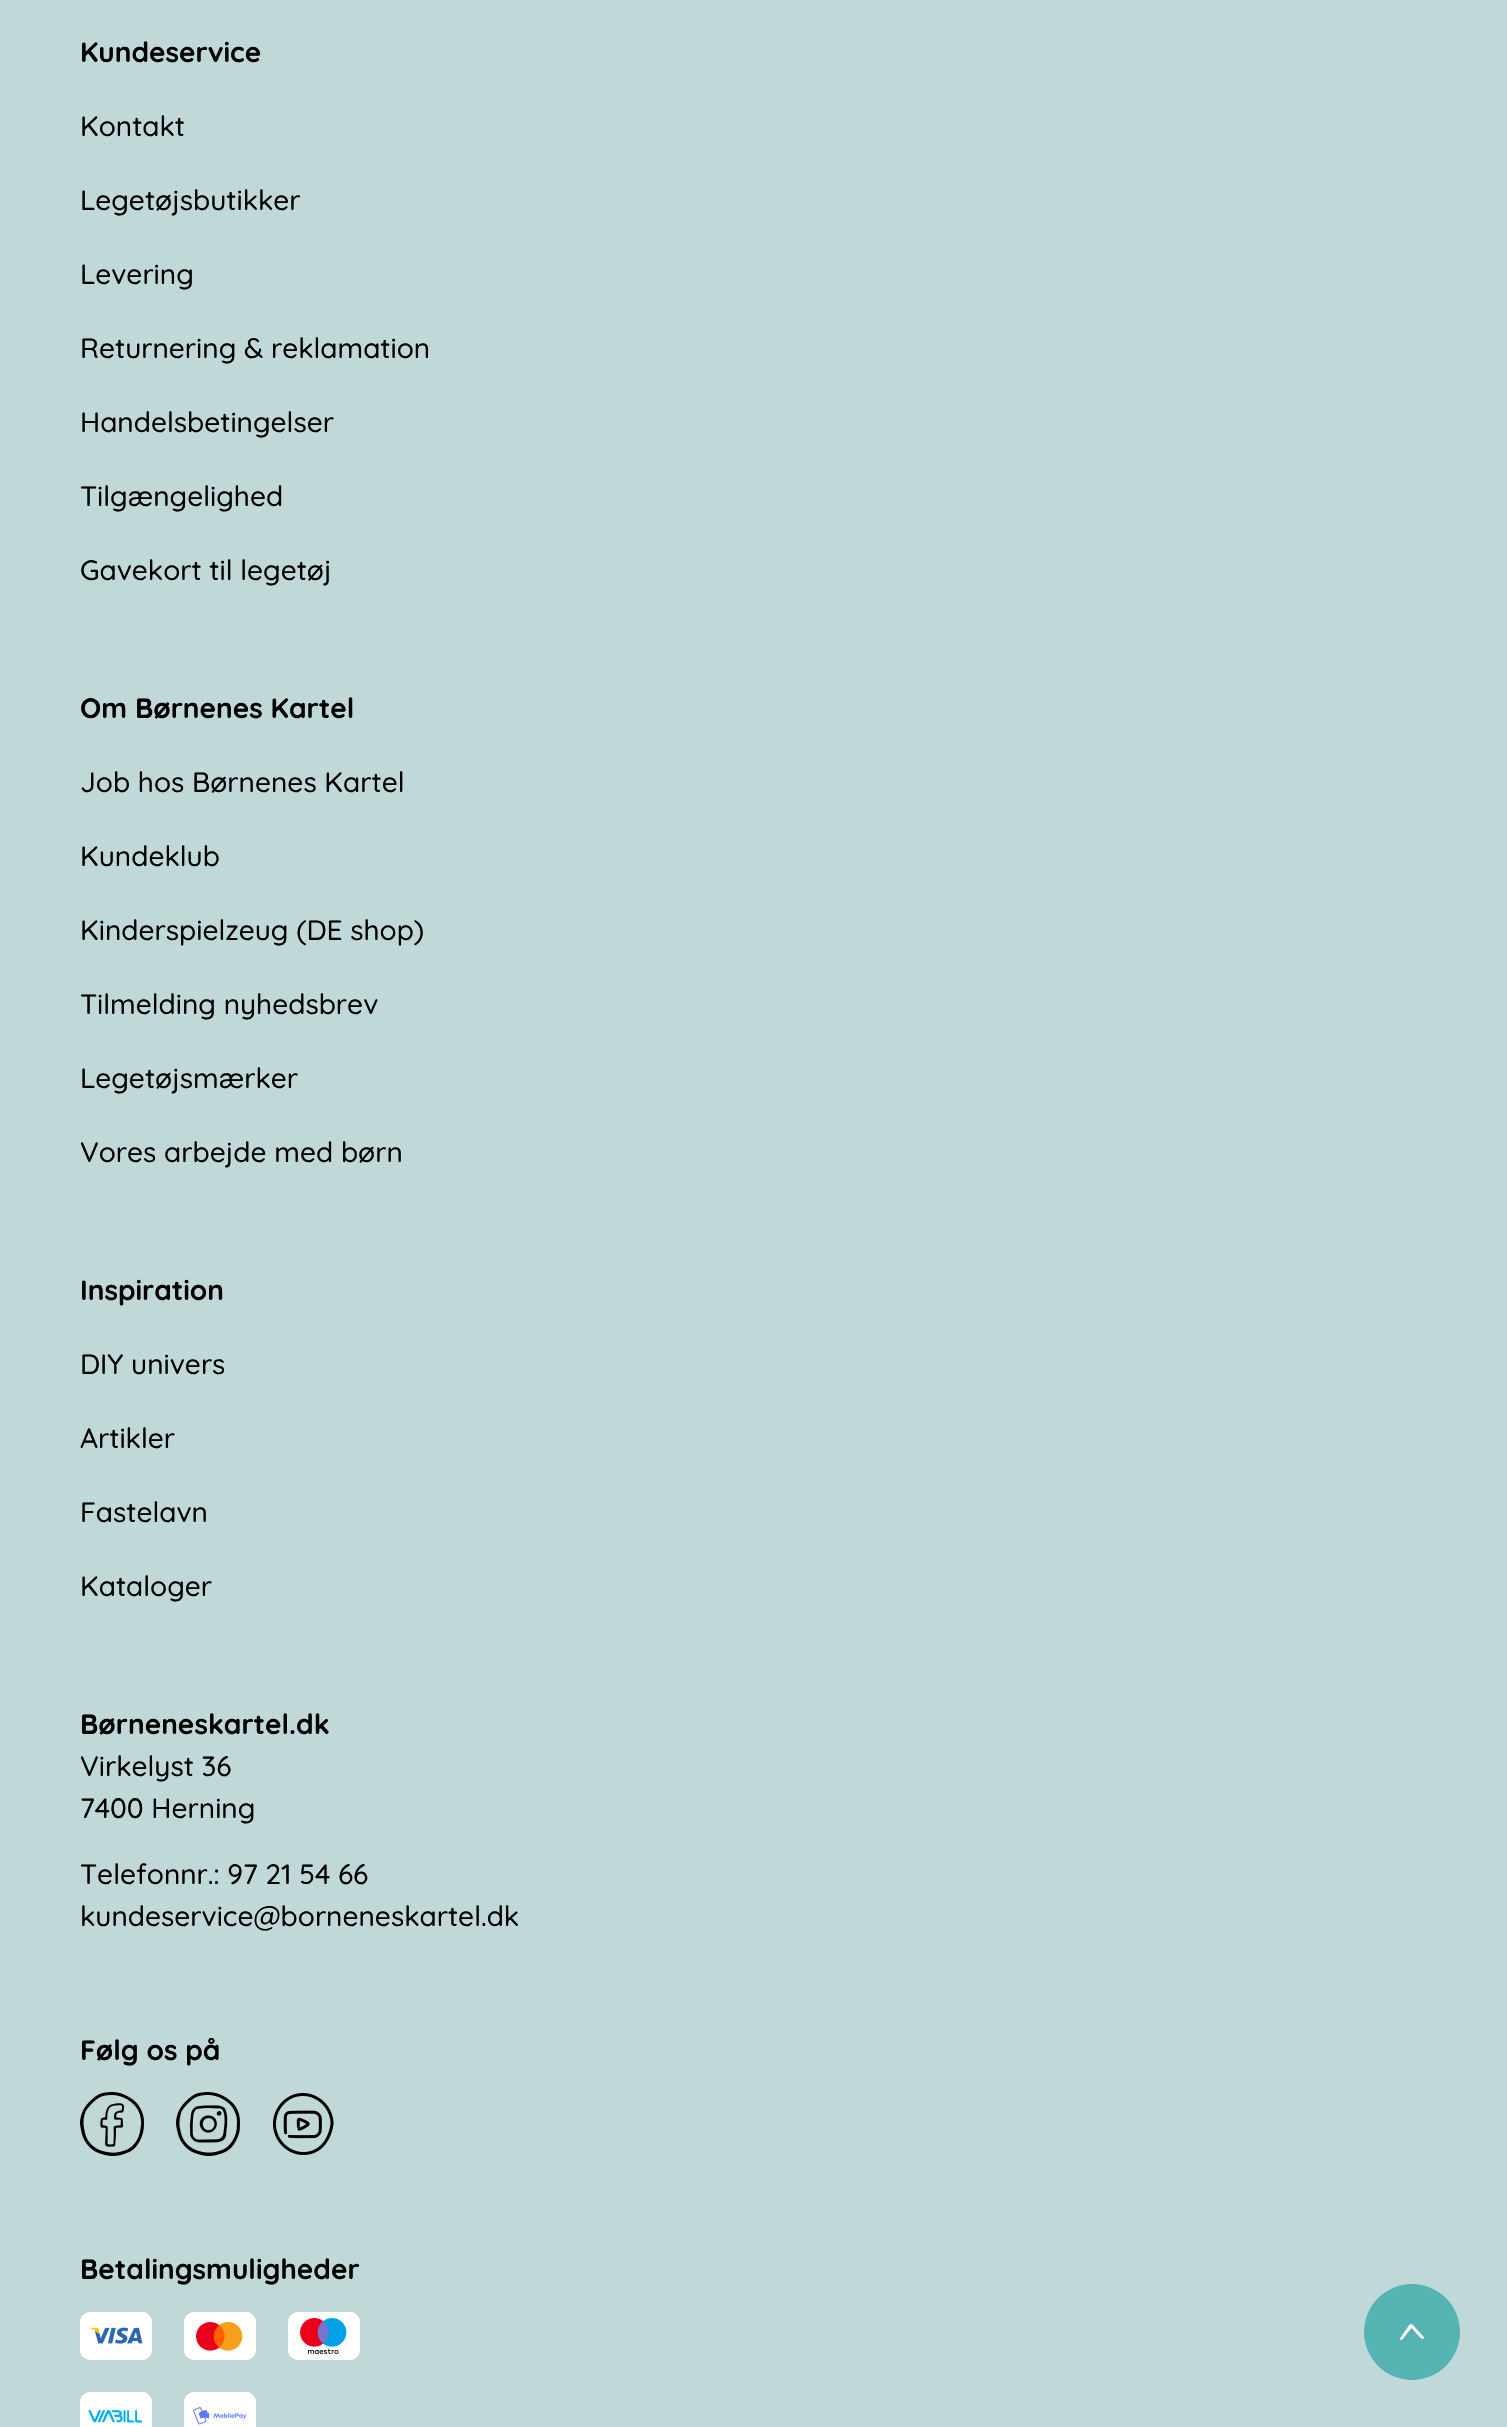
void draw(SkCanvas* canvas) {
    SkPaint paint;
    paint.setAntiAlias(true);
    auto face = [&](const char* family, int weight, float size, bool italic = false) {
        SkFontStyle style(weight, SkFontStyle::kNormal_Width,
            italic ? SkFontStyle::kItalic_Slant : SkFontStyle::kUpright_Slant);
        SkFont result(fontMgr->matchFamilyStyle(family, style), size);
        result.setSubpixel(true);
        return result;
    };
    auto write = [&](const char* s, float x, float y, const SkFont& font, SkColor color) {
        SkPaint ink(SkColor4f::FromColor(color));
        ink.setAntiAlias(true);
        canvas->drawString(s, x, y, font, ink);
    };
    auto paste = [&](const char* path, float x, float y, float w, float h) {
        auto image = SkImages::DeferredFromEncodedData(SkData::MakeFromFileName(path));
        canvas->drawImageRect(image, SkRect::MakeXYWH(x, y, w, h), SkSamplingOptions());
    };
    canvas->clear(SkColorSetRGB(192, 216, 216));
    auto kFont1 = face("Quicksand", 700, 28);
    write("Kundeservice", 80, 62, kFont1, SK_ColorBLACK);
    auto kFont2 = face("Quicksand", 500, 28);
    write("Kontakt", 80, 136, kFont2, SK_ColorBLACK);
    write("Legetøjsbutikker", 80, 210, kFont2, SK_ColorBLACK);
    write("Levering", 80, 284, kFont2, SK_ColorBLACK);
    write("Returnering & reklamation", 80, 358, kFont2, SK_ColorBLACK);
    write("Handelsbetingelser", 80, 432, kFont2, SK_ColorBLACK);
    write("Tilgængelighed", 80, 506, kFont2, SK_ColorBLACK);
    write("Gavekort til legetøj", 80, 580, kFont2, SK_ColorBLACK);
    write("Om Børnenes Kartel", 80, 718, kFont1, SK_ColorBLACK);
    write("Job hos Børnenes Kartel", 80, 792, kFont2, SK_ColorBLACK);
    write("Kundeklub", 80, 866, kFont2, SK_ColorBLACK);
    write("Kinderspielzeug (DE shop)", 80, 940, kFont2, SK_ColorBLACK);
    write("Tilmelding nyhedsbrev", 80, 1014, kFont2, SK_ColorBLACK);
    write("Legetøjsmærker", 80, 1088, kFont2, SK_ColorBLACK);
    write("Vores arbejde med børn", 80, 1162, kFont2, SK_ColorBLACK);
    write("Inspiration", 80, 1300, kFont1, SK_ColorBLACK);
    write("DIY univers", 80, 1374, kFont2, SK_ColorBLACK);
    write("Artikler", 80, 1448, kFont2, SK_ColorBLACK);
    write("Fastelavn", 80, 1522, kFont2, SK_ColorBLACK);
    write("Kataloger", 80, 1596, kFont2, SK_ColorBLACK);
    write("Børneneskartel.dk", 80, 1734, kFont1, SK_ColorBLACK);
    write("Virkelyst 36", 80, 1776, kFont2, SK_ColorBLACK);
    write("7400 Herning", 80, 1818, kFont2, SK_ColorBLACK);
    write("Telefonnr.: 97 21 54 66", 80, 1884, kFont2, SK_ColorBLACK);
    write("kundeservice@borneneskartel.dk", 80, 1926, kFont2, SK_ColorBLACK);
    write("Følg os på", 80, 2060, kFont1, SK_ColorBLACK);
    paste("pic1.png", 80, 2092, 64, 64);
    paste("pic2.png", 176, 2092, 64, 64);
    paste("pic3.png", 272, 2092, 62, 63);
    write("Betalingsmuligheder", 80, 2279, kFont1, SK_ColorBLACK);
    paste("pic4.png", 80, 2312, 72, 48);
    paste("pic5.png", 184, 2312, 72, 48);
    paste("pic6.png", 288, 2312, 72, 48);
    paste("pic7.png", 80, 2392, 72, 35);
    paste("pic8.png", 184, 2392, 72, 35);
    paint.setColor(SkColorSetRGB(85, 180, 177));
    canvas->drawCircle(1412, 2332, 48, paint);
    paste("pic9.png", 1400, 2324, 24, 16);
}
